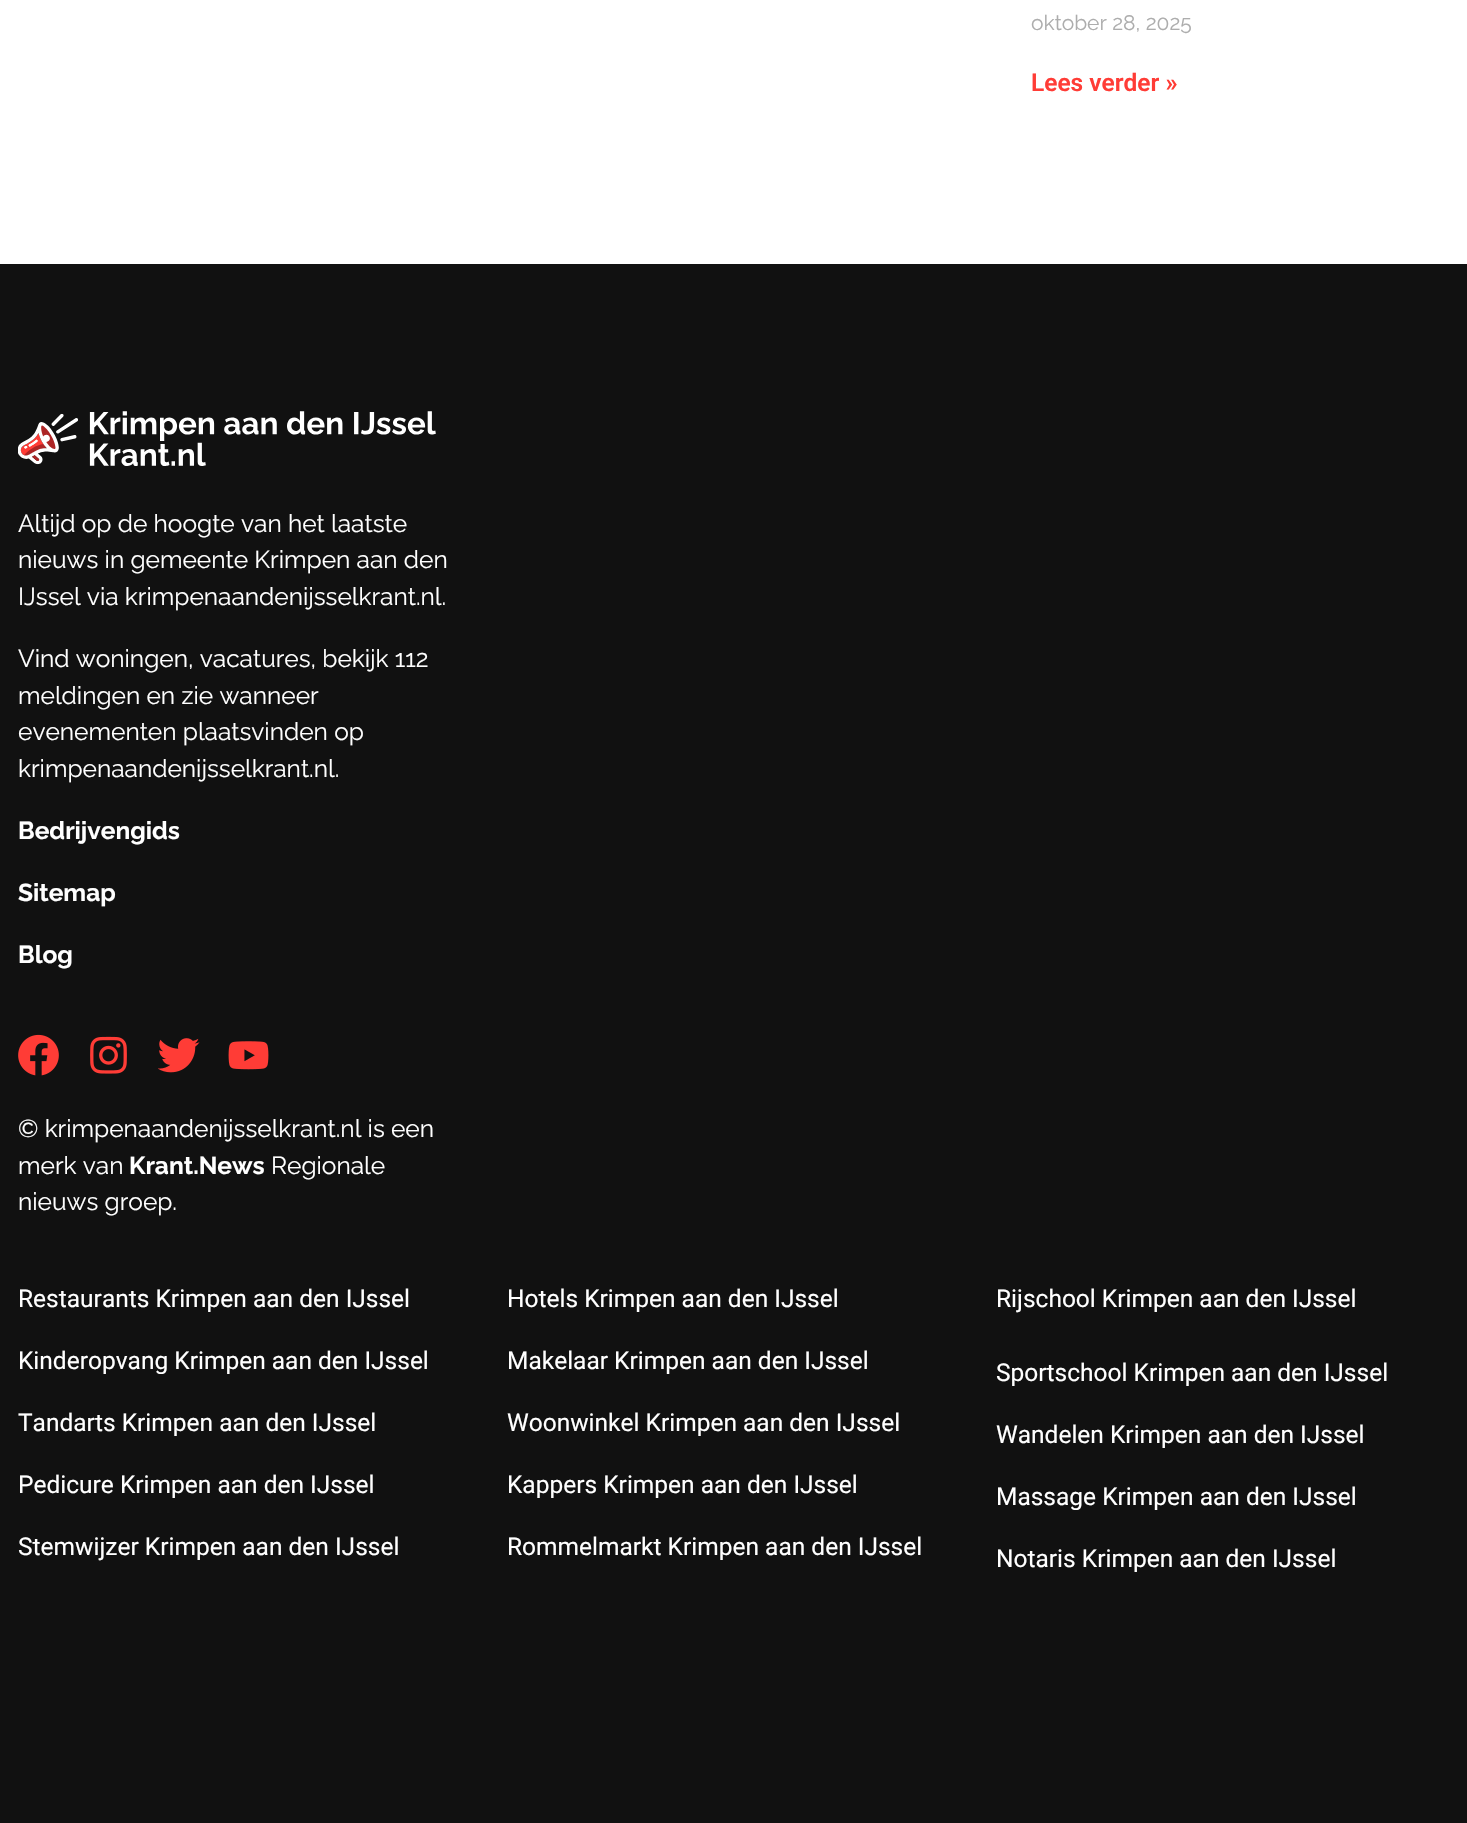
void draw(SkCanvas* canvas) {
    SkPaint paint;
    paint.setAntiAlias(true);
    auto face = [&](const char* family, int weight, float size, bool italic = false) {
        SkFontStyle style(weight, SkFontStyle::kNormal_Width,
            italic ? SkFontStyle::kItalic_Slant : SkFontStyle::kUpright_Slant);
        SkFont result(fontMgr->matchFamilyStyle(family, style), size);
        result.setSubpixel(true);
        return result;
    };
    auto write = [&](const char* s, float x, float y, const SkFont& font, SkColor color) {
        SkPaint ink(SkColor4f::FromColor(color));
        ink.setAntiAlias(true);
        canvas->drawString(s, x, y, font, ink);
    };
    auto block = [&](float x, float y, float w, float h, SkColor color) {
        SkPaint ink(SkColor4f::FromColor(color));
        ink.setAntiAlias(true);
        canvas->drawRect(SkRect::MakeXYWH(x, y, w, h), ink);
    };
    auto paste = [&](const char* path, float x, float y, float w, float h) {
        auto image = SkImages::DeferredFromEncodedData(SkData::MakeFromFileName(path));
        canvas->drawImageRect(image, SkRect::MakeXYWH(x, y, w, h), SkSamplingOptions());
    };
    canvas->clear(SK_ColorWHITE);
    auto kFont1 = face("Raleway", 400, 21);
    write("oktober 28, 2025", 1031, 30, kFont1, SkColorSetRGB(173, 173, 173));
    auto kFont2 = face("Roboto", 600, 24.5f);
    write("Lees verder »", 1031, 91, kFont2, SkColorSetRGB(255, 60, 54));
    block(0, 264, 1467, 1559, SkColorSetRGB(17, 17, 17));
    paste("pic1.png", 18, 411, 418, 55);
    auto kFont3 = face("Raleway", 400, 24.5f);
    write("Altijd op de hoogte van het laatste", 18, 532, kFont3, SK_ColorWHITE);
    write("nieuws in gemeente Krimpen aan den", 18, 568, kFont3, SK_ColorWHITE);
    write("IJssel via krimpenaandenijsselkrant.nl.", 18, 605, kFont3, SK_ColorWHITE);
    write("Vind woningen, vacatures, bekijk 112", 18, 667, kFont3, SK_ColorWHITE);
    write("meldingen en zie wanneer", 18, 704, kFont3, SK_ColorWHITE);
    write("evenementen plaatsvinden op", 18, 740, kFont3, SK_ColorWHITE);
    write("krimpenaandenijsselkrant.nl.", 18, 777, kFont3, SK_ColorWHITE);
    auto kFont4 = face("Raleway", 700, 24.5f);
    write("Bedrijvengids", 18, 839, kFont4, SK_ColorWHITE);
    write("Sitemap", 18, 901, kFont4, SK_ColorWHITE);
    write("Blog", 18, 963, kFont4, SK_ColorWHITE);
    paste("pic2.png", 18, 1034, 41, 42);
    paste("pic3.png", 90, 1036, 37, 38);
    paste("pic4.png", 158, 1038, 42, 35);
    paste("pic5.png", 228, 1041, 41, 29);
    write("© krimpenaandenijsselkrant.nl is een", 18, 1137, kFont3, SK_ColorWHITE);
    write("merk van", 18, 1174, kFont3, SK_ColorWHITE);
    write("Krant.News", 129, 1174, kFont4, SK_ColorWHITE);
    write("Regionale", 271, 1174, kFont3, SK_ColorWHITE);
    write("nieuws groep.", 18, 1210, kFont3, SK_ColorWHITE);
    auto kFont5 = face("Roboto", 400, 24.5f);
    write("Restaurants Krimpen aan den IJssel", 18, 1307, kFont5, SK_ColorWHITE);
    write("Kinderopvang Krimpen aan den IJssel", 18, 1369, kFont5, SK_ColorWHITE);
    write("Tandarts Krimpen aan den IJssel", 18, 1431, kFont5, SK_ColorWHITE);
    write("Pedicure Krimpen aan den IJssel", 18, 1493, kFont5, SK_ColorWHITE);
    write("Stemwijzer Krimpen aan den IJssel", 18, 1555, kFont5, SK_ColorWHITE);
    write("Hotels Krimpen aan den IJssel", 507, 1307, kFont5, SK_ColorWHITE);
    write("Makelaar Krimpen aan den IJssel", 507, 1369, kFont5, SK_ColorWHITE);
    write("Woonwinkel Krimpen aan den IJssel", 507, 1431, kFont5, SK_ColorWHITE);
    write("Kappers Krimpen aan den IJssel", 507, 1493, kFont5, SK_ColorWHITE);
    write("Rommelmarkt Krimpen aan den IJssel", 507, 1555, kFont5, SK_ColorWHITE);
    write("Rijschool Krimpen aan den IJssel", 996, 1307, kFont5, SK_ColorWHITE);
    write("Sportschool Krimpen aan den IJssel", 996, 1381, kFont5, SK_ColorWHITE);
    write("Wandelen Krimpen aan den IJssel", 996, 1443, kFont5, SK_ColorWHITE);
    write("Massage Krimpen aan den IJssel", 996, 1505, kFont5, SK_ColorWHITE);
    write("Notaris Krimpen aan den IJssel", 996, 1567, kFont5, SK_ColorWHITE);
}
